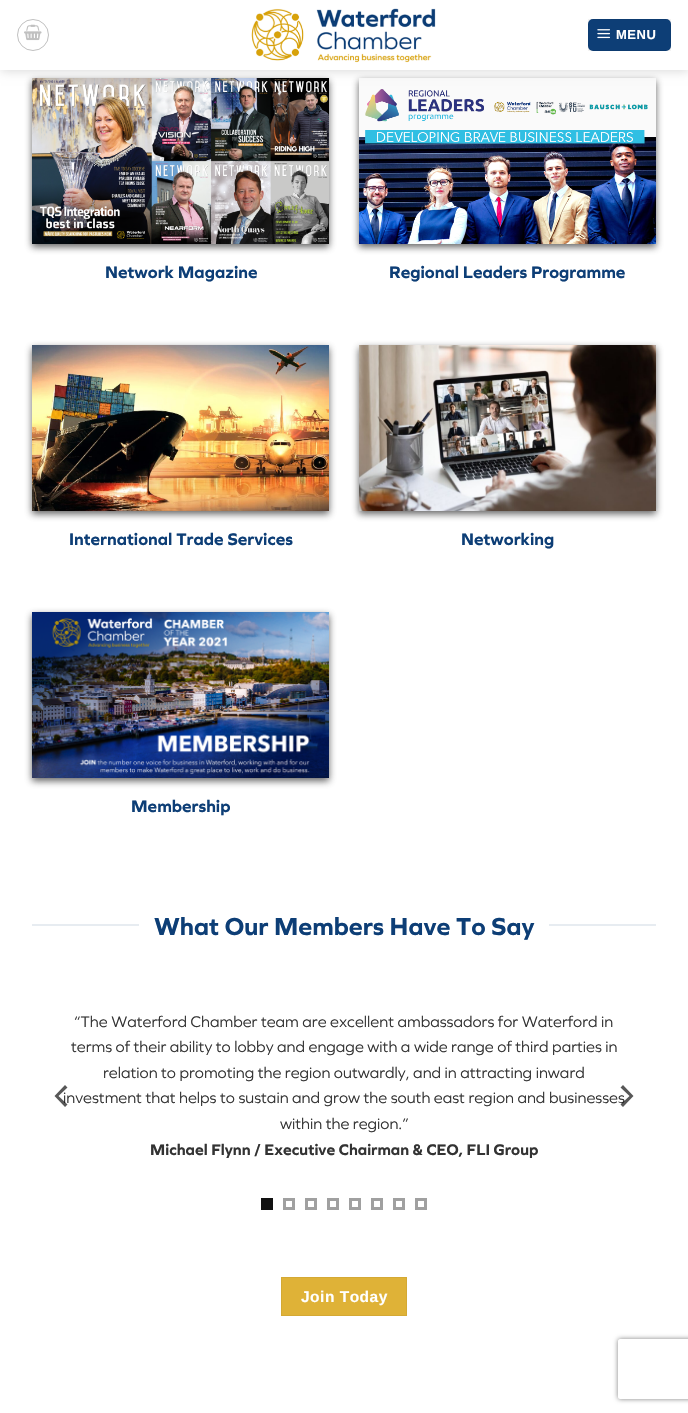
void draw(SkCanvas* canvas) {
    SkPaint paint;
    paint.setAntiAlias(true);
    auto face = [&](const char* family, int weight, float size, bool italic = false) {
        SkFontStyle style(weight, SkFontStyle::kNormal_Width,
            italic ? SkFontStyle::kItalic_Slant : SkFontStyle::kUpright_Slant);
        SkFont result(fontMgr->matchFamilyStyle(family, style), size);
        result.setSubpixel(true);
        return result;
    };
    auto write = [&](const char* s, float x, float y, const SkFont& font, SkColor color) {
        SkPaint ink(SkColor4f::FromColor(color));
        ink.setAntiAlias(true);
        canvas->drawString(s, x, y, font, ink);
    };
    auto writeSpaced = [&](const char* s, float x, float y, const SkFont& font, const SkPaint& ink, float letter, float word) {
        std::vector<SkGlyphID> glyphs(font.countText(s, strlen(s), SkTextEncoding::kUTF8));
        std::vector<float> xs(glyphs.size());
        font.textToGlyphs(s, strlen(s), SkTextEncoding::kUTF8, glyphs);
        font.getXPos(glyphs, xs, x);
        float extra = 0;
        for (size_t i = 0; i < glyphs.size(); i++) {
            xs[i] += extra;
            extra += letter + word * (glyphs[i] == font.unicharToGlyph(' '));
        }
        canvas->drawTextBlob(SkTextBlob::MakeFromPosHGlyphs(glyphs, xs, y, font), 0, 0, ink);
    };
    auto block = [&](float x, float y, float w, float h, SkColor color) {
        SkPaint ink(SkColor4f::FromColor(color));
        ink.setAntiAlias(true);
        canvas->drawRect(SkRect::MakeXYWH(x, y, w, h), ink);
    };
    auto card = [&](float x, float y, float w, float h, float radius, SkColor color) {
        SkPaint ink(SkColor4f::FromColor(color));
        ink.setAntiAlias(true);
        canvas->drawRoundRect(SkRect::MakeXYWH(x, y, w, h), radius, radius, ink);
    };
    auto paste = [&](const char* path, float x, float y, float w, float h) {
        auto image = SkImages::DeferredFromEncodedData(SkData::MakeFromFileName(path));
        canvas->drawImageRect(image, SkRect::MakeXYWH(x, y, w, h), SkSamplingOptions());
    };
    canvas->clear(SK_ColorWHITE);
    paint.setColor(SkColorSetARGB(179, 33, 33, 33));
    paint.setMaskFilter(SkMaskFilter::MakeBlur(kNormal_SkBlurStyle, 3.5f));
    canvas->drawRect(SkRect::MakeXYWH(32, 81, 297, 166), paint);
    paint.setMaskFilter(nullptr);
    paste("pic4.png", 32, 78, 297, 166);
    paint.setMaskFilter(SkMaskFilter::MakeBlur(kNormal_SkBlurStyle, 3.5f));
    canvas->drawRect(SkRect::MakeXYWH(359, 81, 297, 166), paint);
    paint.setMaskFilter(nullptr);
    paste("pic5.png", 359, 78, 297, 166);
    paint.setColor(SkColorSetARGB(38, 0, 0, 0));
    paint.setMaskFilter(SkMaskFilter::MakeBlur(kNormal_SkBlurStyle, 5));
    canvas->drawRect(SkRect::MakeXYWH(1, 1, 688, 70), paint);
    paint.setMaskFilter(nullptr);
    block(0, 0, 688, 70, SK_ColorWHITE);
    paint.setStyle(SkPaint::kStroke_Style);
    paint.setStrokeWidth(1);
    paint.setColor(SkColorSetRGB(192, 192, 192));
    canvas->drawCircle(33, 35, 15.5f, paint);
    paste("pic1.png", 24, 24, 18, 17);
    paste("pic2.png", 251, 8, 185, 55);
    card(588, 19, 83, 32, 5, SkColorSetRGB(13, 62, 118));
    paint.setColor(SkColorSetARGB(13, 0, 0, 0));
    canvas->drawRect(SkRect::MakeXYWH(588.5f, 19.5f, 82, 31), paint);
    paste("pic3.png", 597, 29, 13, 10);
    auto kFont1 = face("Liberation Sans", 700, 13);
    paint.setStyle(SkPaint::kFill_Style);
    paint.setColor(SK_ColorWHITE);
    writeSpaced("MENU", 616, 39, kFont1, paint, 0.5f, 0);
    auto kFont2 = face("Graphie", 700, 17.5f);
    write("Network Magazine", 105, 278, kFont2, SkColorSetRGB(13, 62, 118));
    write("Regional Leaders Programme", 389, 278, kFont2, SkColorSetRGB(13, 62, 118));
    paint.setColor(SkColorSetARGB(179, 33, 33, 33));
    paint.setMaskFilter(SkMaskFilter::MakeBlur(kNormal_SkBlurStyle, 3.5f));
    canvas->drawRect(SkRect::MakeXYWH(32, 348, 297, 166), paint);
    paint.setMaskFilter(nullptr);
    paste("pic6.png", 32, 345, 297, 166);
    write("International Trade Services", 69, 545, kFont2, SkColorSetRGB(13, 62, 118));
    paint.setMaskFilter(SkMaskFilter::MakeBlur(kNormal_SkBlurStyle, 3.5f));
    canvas->drawRect(SkRect::MakeXYWH(359, 348, 297, 166), paint);
    paint.setMaskFilter(nullptr);
    paste("pic7.png", 359, 345, 297, 166);
    write("Networking", 461, 545, kFont2, SkColorSetRGB(13, 62, 118));
    paint.setMaskFilter(SkMaskFilter::MakeBlur(kNormal_SkBlurStyle, 3.5f));
    canvas->drawRect(SkRect::MakeXYWH(32, 615, 297, 166), paint);
    paint.setMaskFilter(nullptr);
    paste("pic8.png", 32, 612, 297, 166);
    write("Membership", 131, 812, kFont2, SkColorSetRGB(13, 62, 118));
    block(32, 924, 107, 2, SkColorSetRGB(231, 236, 241));
    auto kFont3 = face("Graphie", 700, 25.6f);
    write("What Our Members Have To Say", 154, 935, kFont3, SkColorSetRGB(13, 62, 118));
    block(549, 924, 107, 2, SkColorSetRGB(231, 236, 241));
    auto kFont4 = face("Graphie", 400, 16);
    write("investment that helps to sustain and grow the south east region and businesses", 63, 1103, kFont4, SkColorSetRGB(51, 51, 51));
    paint.setColor(SkColorSetARGB(179, 17, 17, 17));
    canvas->drawPath(SkPathBuilder().moveTo(54.5f, 1096).lineTo(65, 1107).lineTo(67.5f, 1104.5f).lineTo(58.5f, 1096).lineTo(67.5f, 1087.5f).lineTo(65, 1085).close().detach(), paint);
    write("“The Waterford Chamber team are excellent ambassadors for Waterford in", 74, 1027, kFont4, SkColorSetRGB(51, 51, 51));
    write("terms of their ability to lobby and engage with a wide range of third parties in", 71, 1052, kFont4, SkColorSetRGB(51, 51, 51));
    write("relation to promoting the region outwardly, and in attracting inward", 103, 1078, kFont4, SkColorSetRGB(51, 51, 51));
    write("within the region.”", 280, 1129, kFont4, SkColorSetRGB(51, 51, 51));
    auto kFont5 = face("Graphie", 700, 16);
    write("Michael Flynn / Executive Chairman & CEO, FLI Group", 150, 1155, kFont5, SkColorSetRGB(51, 51, 51));
    canvas->drawPath(SkPathBuilder().moveTo(633.5f, 1096).lineTo(623, 1085).lineTo(620.5f, 1087.5f).lineTo(629.5f, 1096).lineTo(620.5f, 1104.5f).lineTo(623, 1107).close().detach(), paint);
    block(261, 1198, 12, 12, SkColorSetRGB(17, 17, 17));
    paint.setStyle(SkPaint::kStroke_Style);
    paint.setStrokeWidth(3);
    paint.setColor(SkColorSetRGB(160, 160, 160));
    canvas->drawRect(SkRect::MakeXYWH(284.5f, 1199.5f, 9, 9), paint);
    canvas->drawRect(SkRect::MakeXYWH(306.5f, 1199.5f, 9, 9), paint);
    canvas->drawRect(SkRect::MakeXYWH(328.5f, 1199.5f, 9, 9), paint);
    canvas->drawRect(SkRect::MakeXYWH(350.5f, 1199.5f, 9, 9), paint);
    canvas->drawRect(SkRect::MakeXYWH(372.5f, 1199.5f, 9, 9), paint);
    canvas->drawRect(SkRect::MakeXYWH(394.5f, 1199.5f, 9, 9), paint);
    canvas->drawRect(SkRect::MakeXYWH(416.5f, 1199.5f, 9, 9), paint);
    paint.setStyle(SkPaint::kFill_Style);
    paint.setColor(SkColorSetRGB(223, 178, 55));
    canvas->drawRect(SkRect::MakeXYWH(281.5f, 1277.5f, 125, 38), paint);
    paint.setStyle(SkPaint::kStroke_Style);
    paint.setStrokeWidth(1);
    paint.setColor(SkColorSetRGB(212, 169, 52));
    canvas->drawRect(SkRect::MakeXYWH(281.5f, 1277.5f, 125, 38), paint);
    auto kFont6 = face("Liberation Sans", 700, 15.5f);
    paint.setStyle(SkPaint::kFill_Style);
    paint.setColor(SK_ColorWHITE);
    writeSpaced("Join Today", 301, 1302, kFont6, paint, 0.5f, 0);
    canvas->save();
    canvas->clipPath(SkPathBuilder(SkPathFillType::kEvenOdd).moveTo(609, 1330).lineTo(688, 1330).lineTo(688, 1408).lineTo(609, 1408).close().moveTo(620, 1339).lineTo(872, 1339).cubicTo(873, 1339, 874, 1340, 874, 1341).lineTo(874, 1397).cubicTo(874, 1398, 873, 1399, 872, 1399).lineTo(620, 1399).cubicTo(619, 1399, 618, 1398, 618, 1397).lineTo(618, 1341).cubicTo(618, 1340, 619, 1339, 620, 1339).close().detach(), true);
    paint.setColor(SkColorSetRGB(128, 128, 128));
    paint.setMaskFilter(SkMaskFilter::MakeBlur(kNormal_SkBlurStyle, 2.5f));
    canvas->drawRoundRect(SkRect::MakeXYWH(618, 1339, 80, 60), 2, 2, paint);
    paint.setMaskFilter(nullptr);
    canvas->restore();
}
